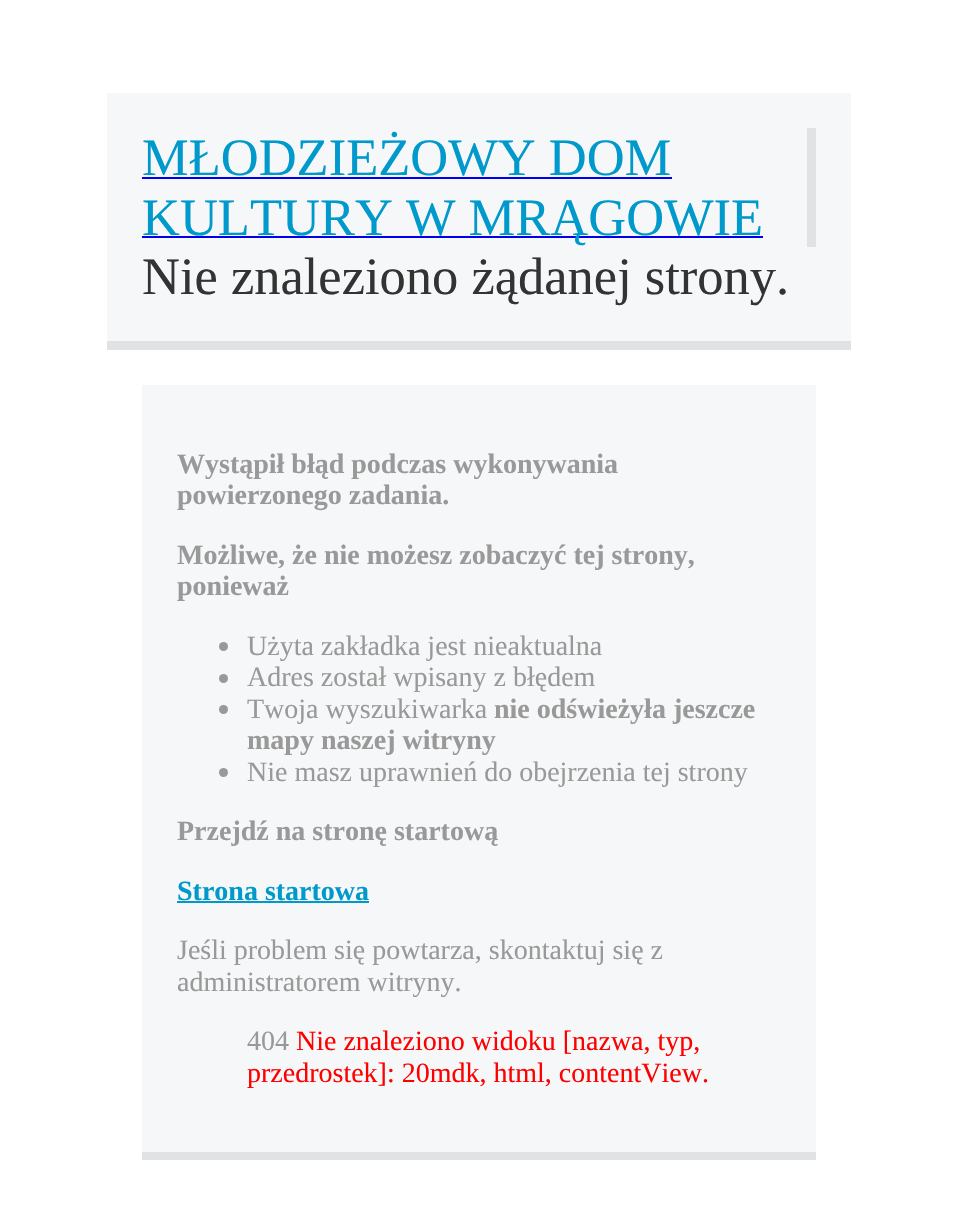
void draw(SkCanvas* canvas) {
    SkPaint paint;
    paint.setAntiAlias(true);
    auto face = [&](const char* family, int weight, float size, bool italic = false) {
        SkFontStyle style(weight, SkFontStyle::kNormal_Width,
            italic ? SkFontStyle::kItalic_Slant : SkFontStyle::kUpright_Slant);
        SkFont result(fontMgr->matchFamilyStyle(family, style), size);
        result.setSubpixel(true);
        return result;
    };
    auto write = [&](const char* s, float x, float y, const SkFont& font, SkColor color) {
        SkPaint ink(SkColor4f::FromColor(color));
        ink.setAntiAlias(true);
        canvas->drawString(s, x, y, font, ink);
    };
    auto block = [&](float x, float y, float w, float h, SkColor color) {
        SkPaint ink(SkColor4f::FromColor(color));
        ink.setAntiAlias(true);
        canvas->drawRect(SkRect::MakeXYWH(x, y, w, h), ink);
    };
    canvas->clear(SK_ColorWHITE);
    block(107, 93, 744, 248, SkColorSetRGB(246, 247, 248));
    block(107, 341, 744, 9, SkColorSetRGB(225, 226, 227));
    block(807, 128, 9, 119, SkColorSetRGB(225, 226, 227));
    auto kFont1 = face("Liberation Serif", 400, 52.5f);
    write("MŁODZIEŻOWY DOM", 142, 175, kFont1, SkColorSetRGB(0, 153, 204));
    block(142, 177, 530, 2, SkColorSetRGB(0, 0, 238));
    block(142, 236, 621, 2, SkColorSetRGB(0, 0, 238));
    write("KULTURY W MRĄGOWIE", 142, 235, kFont1, SkColorSetRGB(0, 153, 204));
    write("Nie znaleziono żądanej strony.", 142, 294, kFont1, SkColorSetRGB(51, 51, 51));
    block(142, 385, 674, 767, SkColorSetRGB(246, 247, 248));
    block(142, 1152, 674, 8, SkColorSetRGB(225, 226, 227));
    auto kFont2 = face("Liberation Serif", 700, 28);
    write("Wystąpił błąd podczas wykonywania", 177, 473, kFont2, SkColorSetRGB(153, 153, 153));
    write("powierzonego zadania.", 177, 504, kFont2, SkColorSetRGB(153, 153, 153));
    write("Możliwe, że nie możesz zobaczyć tej strony,", 177, 564, kFont2, SkColorSetRGB(153, 153, 153));
    write("ponieważ", 177, 595, kFont2, SkColorSetRGB(153, 153, 153));
    paint.setColor(SkColorSetRGB(153, 153, 153));
    canvas->drawCircle(223.5f, 646.5f, 4.5f, paint);
    auto kFont3 = face("Liberation Serif", 400, 28);
    write("Użyta zakładka jest nieaktualna", 247, 655, kFont3, SkColorSetRGB(153, 153, 153));
    canvas->drawCircle(223.5f, 678.5f, 4.5f, paint);
    write("Adres został wpisany z błędem", 247, 686, kFont3, SkColorSetRGB(153, 153, 153));
    canvas->drawCircle(223.5f, 709.5f, 4.5f, paint);
    write("Twoja wyszukiwarka", 247, 718, kFont3, SkColorSetRGB(153, 153, 153));
    write("nie odświeżyła jeszcze", 494, 718, kFont2, SkColorSetRGB(153, 153, 153));
    write("mapy naszej witryny", 247, 749, kFont2, SkColorSetRGB(153, 153, 153));
    canvas->drawCircle(223.5f, 772.5f, 4.5f, paint);
    write("Nie masz uprawnień do obejrzenia tej strony", 247, 781, kFont3, SkColorSetRGB(153, 153, 153));
    write("Przejdź na stronę startową", 177, 840, kFont2, SkColorSetRGB(153, 153, 153));
    write("Strona startowa", 177, 900, kFont2, SkColorSetRGB(0, 153, 204));
    block(177, 901, 192, 2, SkColorSetRGB(0, 153, 204));
    write("Jeśli problem się powtarza, skontaktuj się z", 177, 959, kFont3, SkColorSetRGB(153, 153, 153));
    write("administratorem witryny.", 177, 991, kFont3, SkColorSetRGB(153, 153, 153));
    write("404", 247, 1050, kFont3, SkColorSetRGB(153, 153, 153));
    write("Nie znaleziono widoku [nazwa, typ,", 296, 1050, kFont3, SkColorSetRGB(255, 0, 0));
    write("przedrostek]: 20mdk, html, contentView.", 247, 1082, kFont3, SkColorSetRGB(255, 0, 0));
}
